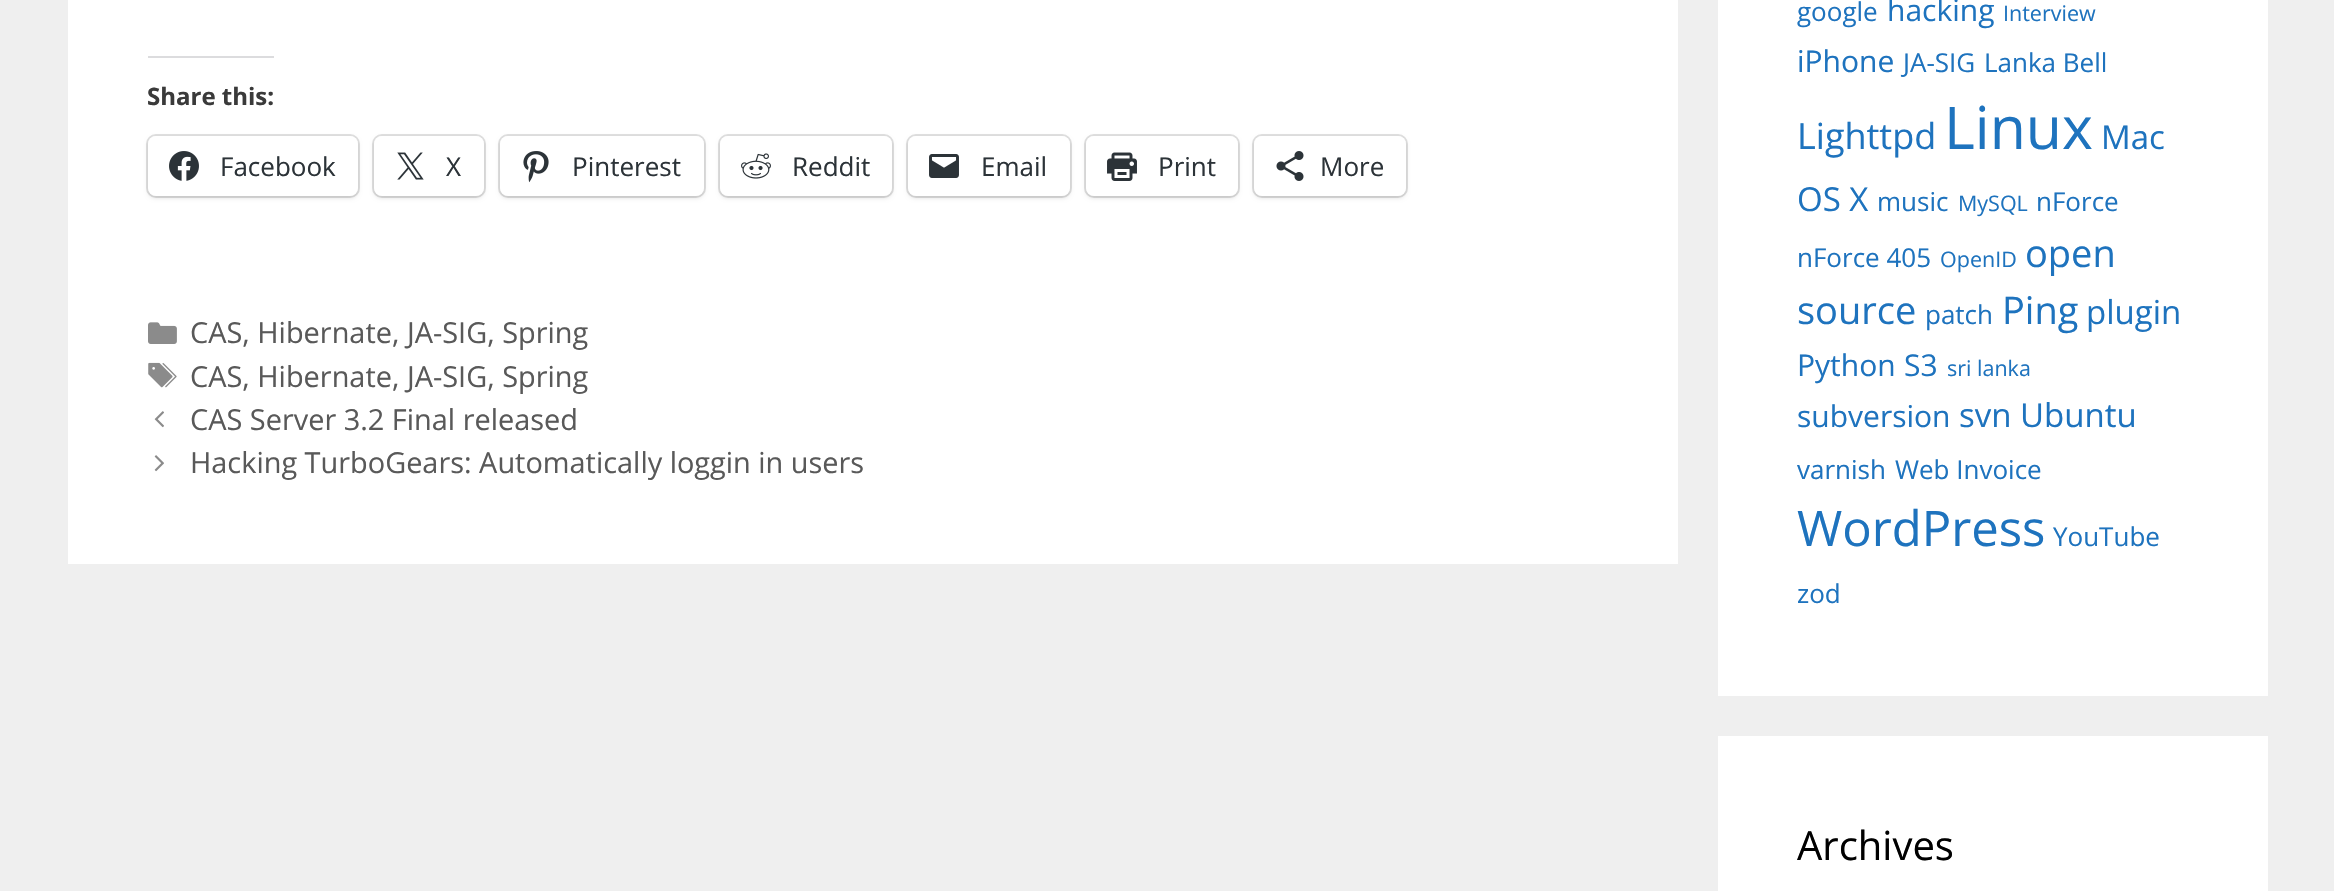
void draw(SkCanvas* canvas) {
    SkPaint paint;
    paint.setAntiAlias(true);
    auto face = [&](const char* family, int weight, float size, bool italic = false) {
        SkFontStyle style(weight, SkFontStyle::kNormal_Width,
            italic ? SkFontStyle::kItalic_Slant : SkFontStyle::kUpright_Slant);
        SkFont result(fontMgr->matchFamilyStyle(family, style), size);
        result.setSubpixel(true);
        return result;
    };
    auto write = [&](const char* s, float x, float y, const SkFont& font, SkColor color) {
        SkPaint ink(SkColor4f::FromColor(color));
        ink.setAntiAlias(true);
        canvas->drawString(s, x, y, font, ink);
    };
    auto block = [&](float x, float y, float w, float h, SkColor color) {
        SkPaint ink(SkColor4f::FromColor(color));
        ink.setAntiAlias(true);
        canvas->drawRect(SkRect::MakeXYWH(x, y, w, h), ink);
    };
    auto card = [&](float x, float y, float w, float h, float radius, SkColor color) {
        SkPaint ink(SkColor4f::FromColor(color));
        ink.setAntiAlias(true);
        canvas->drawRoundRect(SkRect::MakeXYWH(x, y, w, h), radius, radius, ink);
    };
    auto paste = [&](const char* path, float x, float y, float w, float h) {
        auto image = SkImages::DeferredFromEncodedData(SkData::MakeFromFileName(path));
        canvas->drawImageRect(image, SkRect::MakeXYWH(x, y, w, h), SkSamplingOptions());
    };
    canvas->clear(SkColorSetRGB(239, 239, 239));
    block(68, 0, 1610, 564, SK_ColorWHITE);
    block(148, 56, 126, 2, SkColorSetRGB(220, 220, 222));
    auto kFont1 = face("Open Sans", 700, 24);
    write("Share this:", 147, 105, kFont1, SkColorSetRGB(58, 58, 58));
    paint.setStyle(SkPaint::kStroke_Style);
    paint.setStrokeWidth(2);
    paint.setColor(SkColorSetRGB(224, 224, 224));
    canvas->drawRoundRect(SkRect::MakeXYWH(147, 135, 212, 62), 9, 9, paint);
    paint.setStyle(SkPaint::kFill_Style);
    paint.setColor(SkColorSetARGB(31, 0, 0, 0));
    paint.setMaskFilter(SkMaskFilter::MakeBlur(kNormal_SkBlurStyle, 2));
    canvas->drawRoundRect(SkRect::MakeXYWH(148, 138, 210, 60), 8, 8, paint);
    paint.setMaskFilter(nullptr);
    card(148, 136, 210, 60, 8, SK_ColorWHITE);
    paste("pic1.png", 169, 151, 30, 30);
    auto kFont2 = face("Open Sans", 400, 26);
    write("Facebook", 220, 176, kFont2, SkColorSetRGB(44, 51, 56));
    paint.setStyle(SkPaint::kStroke_Style);
    paint.setColor(SkColorSetRGB(224, 224, 224));
    canvas->drawRoundRect(SkRect::MakeXYWH(373, 135, 112, 62), 9, 9, paint);
    paint.setStyle(SkPaint::kFill_Style);
    paint.setColor(SkColorSetARGB(31, 0, 0, 0));
    paint.setMaskFilter(SkMaskFilter::MakeBlur(kNormal_SkBlurStyle, 2));
    canvas->drawRoundRect(SkRect::MakeXYWH(374, 138, 110, 60), 8, 8, paint);
    paint.setMaskFilter(nullptr);
    card(374, 136, 110, 60, 8, SK_ColorWHITE);
    paste("pic2.png", 397, 152, 27, 28);
    write("X", 446, 176, kFont2, SkColorSetRGB(44, 51, 56));
    paint.setStyle(SkPaint::kStroke_Style);
    paint.setColor(SkColorSetRGB(224, 224, 224));
    canvas->drawRoundRect(SkRect::MakeXYWH(499, 135, 206, 62), 9, 9, paint);
    paint.setStyle(SkPaint::kFill_Style);
    paint.setColor(SkColorSetARGB(31, 0, 0, 0));
    paint.setMaskFilter(SkMaskFilter::MakeBlur(kNormal_SkBlurStyle, 2));
    canvas->drawRoundRect(SkRect::MakeXYWH(500, 138, 204, 60), 8, 8, paint);
    paint.setMaskFilter(nullptr);
    card(500, 136, 204, 60, 8, SK_ColorWHITE);
    paste("pic3.png", 523, 151, 26, 32);
    write("Pinterest", 572, 176, kFont2, SkColorSetRGB(44, 51, 56));
    paint.setStyle(SkPaint::kStroke_Style);
    paint.setColor(SkColorSetRGB(224, 224, 224));
    canvas->drawRoundRect(SkRect::MakeXYWH(719, 135, 174, 62), 9, 9, paint);
    paint.setStyle(SkPaint::kFill_Style);
    paint.setColor(SkColorSetARGB(31, 0, 0, 0));
    paint.setMaskFilter(SkMaskFilter::MakeBlur(kNormal_SkBlurStyle, 2));
    canvas->drawRoundRect(SkRect::MakeXYWH(720, 138, 172, 60), 8, 8, paint);
    paint.setMaskFilter(nullptr);
    card(720, 136, 172, 60, 8, SK_ColorWHITE);
    paste("pic4.png", 741, 153, 30, 26);
    write("Reddit", 792, 176, kFont2, SkColorSetRGB(44, 51, 56));
    paint.setStyle(SkPaint::kStroke_Style);
    paint.setColor(SkColorSetRGB(224, 224, 224));
    canvas->drawRoundRect(SkRect::MakeXYWH(907, 135, 164, 62), 9, 9, paint);
    paint.setStyle(SkPaint::kFill_Style);
    paint.setColor(SkColorSetARGB(31, 0, 0, 0));
    paint.setMaskFilter(SkMaskFilter::MakeBlur(kNormal_SkBlurStyle, 2));
    canvas->drawRoundRect(SkRect::MakeXYWH(908, 138, 162, 60), 8, 8, paint);
    paint.setMaskFilter(nullptr);
    card(908, 136, 162, 60, 8, SK_ColorWHITE);
    paste("pic5.png", 929, 154, 30, 24);
    write("Email", 981, 176, kFont2, SkColorSetRGB(44, 51, 56));
    paint.setStyle(SkPaint::kStroke_Style);
    paint.setColor(SkColorSetRGB(224, 224, 224));
    canvas->drawRoundRect(SkRect::MakeXYWH(1085, 135, 154, 62), 9, 9, paint);
    paint.setStyle(SkPaint::kFill_Style);
    paint.setColor(SkColorSetARGB(31, 0, 0, 0));
    paint.setMaskFilter(SkMaskFilter::MakeBlur(kNormal_SkBlurStyle, 2));
    canvas->drawRoundRect(SkRect::MakeXYWH(1086, 138, 152, 60), 8, 8, paint);
    paint.setMaskFilter(nullptr);
    card(1086, 136, 152, 60, 8, SK_ColorWHITE);
    paste("pic6.png", 1107, 152, 30, 29);
    write("Print", 1158, 176, kFont2, SkColorSetRGB(44, 51, 56));
    paint.setStyle(SkPaint::kStroke_Style);
    paint.setColor(SkColorSetRGB(224, 224, 224));
    canvas->drawRoundRect(SkRect::MakeXYWH(1253, 135, 154, 62), 9, 9, paint);
    paint.setStyle(SkPaint::kFill_Style);
    paint.setColor(SkColorSetARGB(31, 0, 0, 0));
    paint.setMaskFilter(SkMaskFilter::MakeBlur(kNormal_SkBlurStyle, 2));
    canvas->drawRoundRect(SkRect::MakeXYWH(1254, 138, 152, 60), 8, 8, paint);
    paint.setMaskFilter(nullptr);
    card(1254, 136, 152, 60, 8, SK_ColorWHITE);
    paste("pic7.png", 1276, 151, 28, 30);
    write("More", 1320, 176, kFont2, SkColorSetRGB(44, 51, 56));
    paste("pic8.png", 148, 322, 29, 22);
    auto kFont3 = face("Open Sans", 400, 28.9f);
    write("CAS, Hibernate, JA-SIG, Spring", 190, 343, kFont3, SkColorSetRGB(89, 89, 89));
    paste("pic9.png", 148, 362, 29, 26);
    write("CAS, Hibernate, JA-SIG, Spring", 190, 387, kFont3, SkColorSetRGB(89, 89, 89));
    paste("pic10.png", 154, 411, 10, 17);
    write("CAS Server 3.2 Final released", 190, 430, kFont3, SkColorSetRGB(89, 89, 89));
    paste("pic11.png", 154, 455, 10, 17);
    write("Hacking TurboGears: Automatically loggin in users", 190, 473, kFont3, SkColorSetRGB(89, 89, 89));
    block(1718, 0, 550, 696, SK_ColorWHITE);
    write("google", 1797, 21, kFont2, SkColorSetRGB(30, 115, 190));
    auto kFont4 = face("Open Sans", 400, 30);
    write("hacking", 1887, 21, kFont4, SkColorSetRGB(30, 115, 190));
    auto kFont5 = face("Open Sans", 400, 21.5f);
    write("Interview", 2003, 21, kFont5, SkColorSetRGB(30, 115, 190));
    write("iPhone", 1797, 72, kFont4, SkColorSetRGB(30, 115, 190));
    write("JA-SIG", 1903, 72, kFont2, SkColorSetRGB(30, 115, 190));
    write("Lanka Bell", 1984, 72, kFont2, SkColorSetRGB(30, 115, 190));
    auto kFont6 = face("Open Sans", 400, 36);
    write("Lighttpd", 1797, 149, kFont6, SkColorSetRGB(30, 115, 190));
    auto kFont7 = face("Open Sans", 400, 59);
    write("Linux", 1944, 149, kFont7, SkColorSetRGB(30, 115, 190));
    auto kFont8 = face("Open Sans", 400, 33);
    write("Mac", 2101, 149, kFont8, SkColorSetRGB(30, 115, 190));
    write("OS X", 1797, 211, kFont8, SkColorSetRGB(30, 115, 190));
    write("music", 1877, 211, kFont2, SkColorSetRGB(30, 115, 190));
    write("MySQL", 1958, 211, kFont5, SkColorSetRGB(30, 115, 190));
    write("nForce", 2036, 211, kFont2, SkColorSetRGB(30, 115, 190));
    write("nForce 405", 1797, 267, kFont2, SkColorSetRGB(30, 115, 190));
    write("OpenID", 1940, 267, kFont5, SkColorSetRGB(30, 115, 190));
    auto kFont9 = face("Open Sans", 400, 38);
    write("open", 2025, 267, kFont9, SkColorSetRGB(30, 115, 190));
    write("source", 1797, 324, kFont9, SkColorSetRGB(30, 115, 190));
    write("patch", 1925, 324, kFont2, SkColorSetRGB(30, 115, 190));
    write("Ping", 2002, 324, kFont9, SkColorSetRGB(30, 115, 190));
    write("plugin", 2086, 324, kFont8, SkColorSetRGB(30, 115, 190));
    write("Python", 1797, 376, kFont4, SkColorSetRGB(30, 115, 190));
    write("S3", 1904, 376, kFont4, SkColorSetRGB(30, 115, 190));
    write("sri lanka", 1947, 376, kFont5, SkColorSetRGB(30, 115, 190));
    write("subversion", 1797, 427, kFont4, SkColorSetRGB(30, 115, 190));
    write("svn Ubuntu", 1959, 427, kFont8, SkColorSetRGB(30, 115, 190));
    write("varnish", 1797, 479, kFont2, SkColorSetRGB(30, 115, 190));
    write("Web Invoice", 1895, 479, kFont2, SkColorSetRGB(30, 115, 190));
    auto kFont10 = face("Open Sans", 400, 49);
    write("WordPress", 1797, 546, kFont10, SkColorSetRGB(30, 115, 190));
    write("YouTube", 2053, 546, kFont2, SkColorSetRGB(30, 115, 190));
    write("zod", 1797, 603, kFont2, SkColorSetRGB(30, 115, 190));
    block(1718, 736, 550, 155, SK_ColorWHITE);
    auto kFont11 = face("Open Sans", 400, 40);
    write("Archives", 1797, 860, kFont11, SK_ColorBLACK);
}
